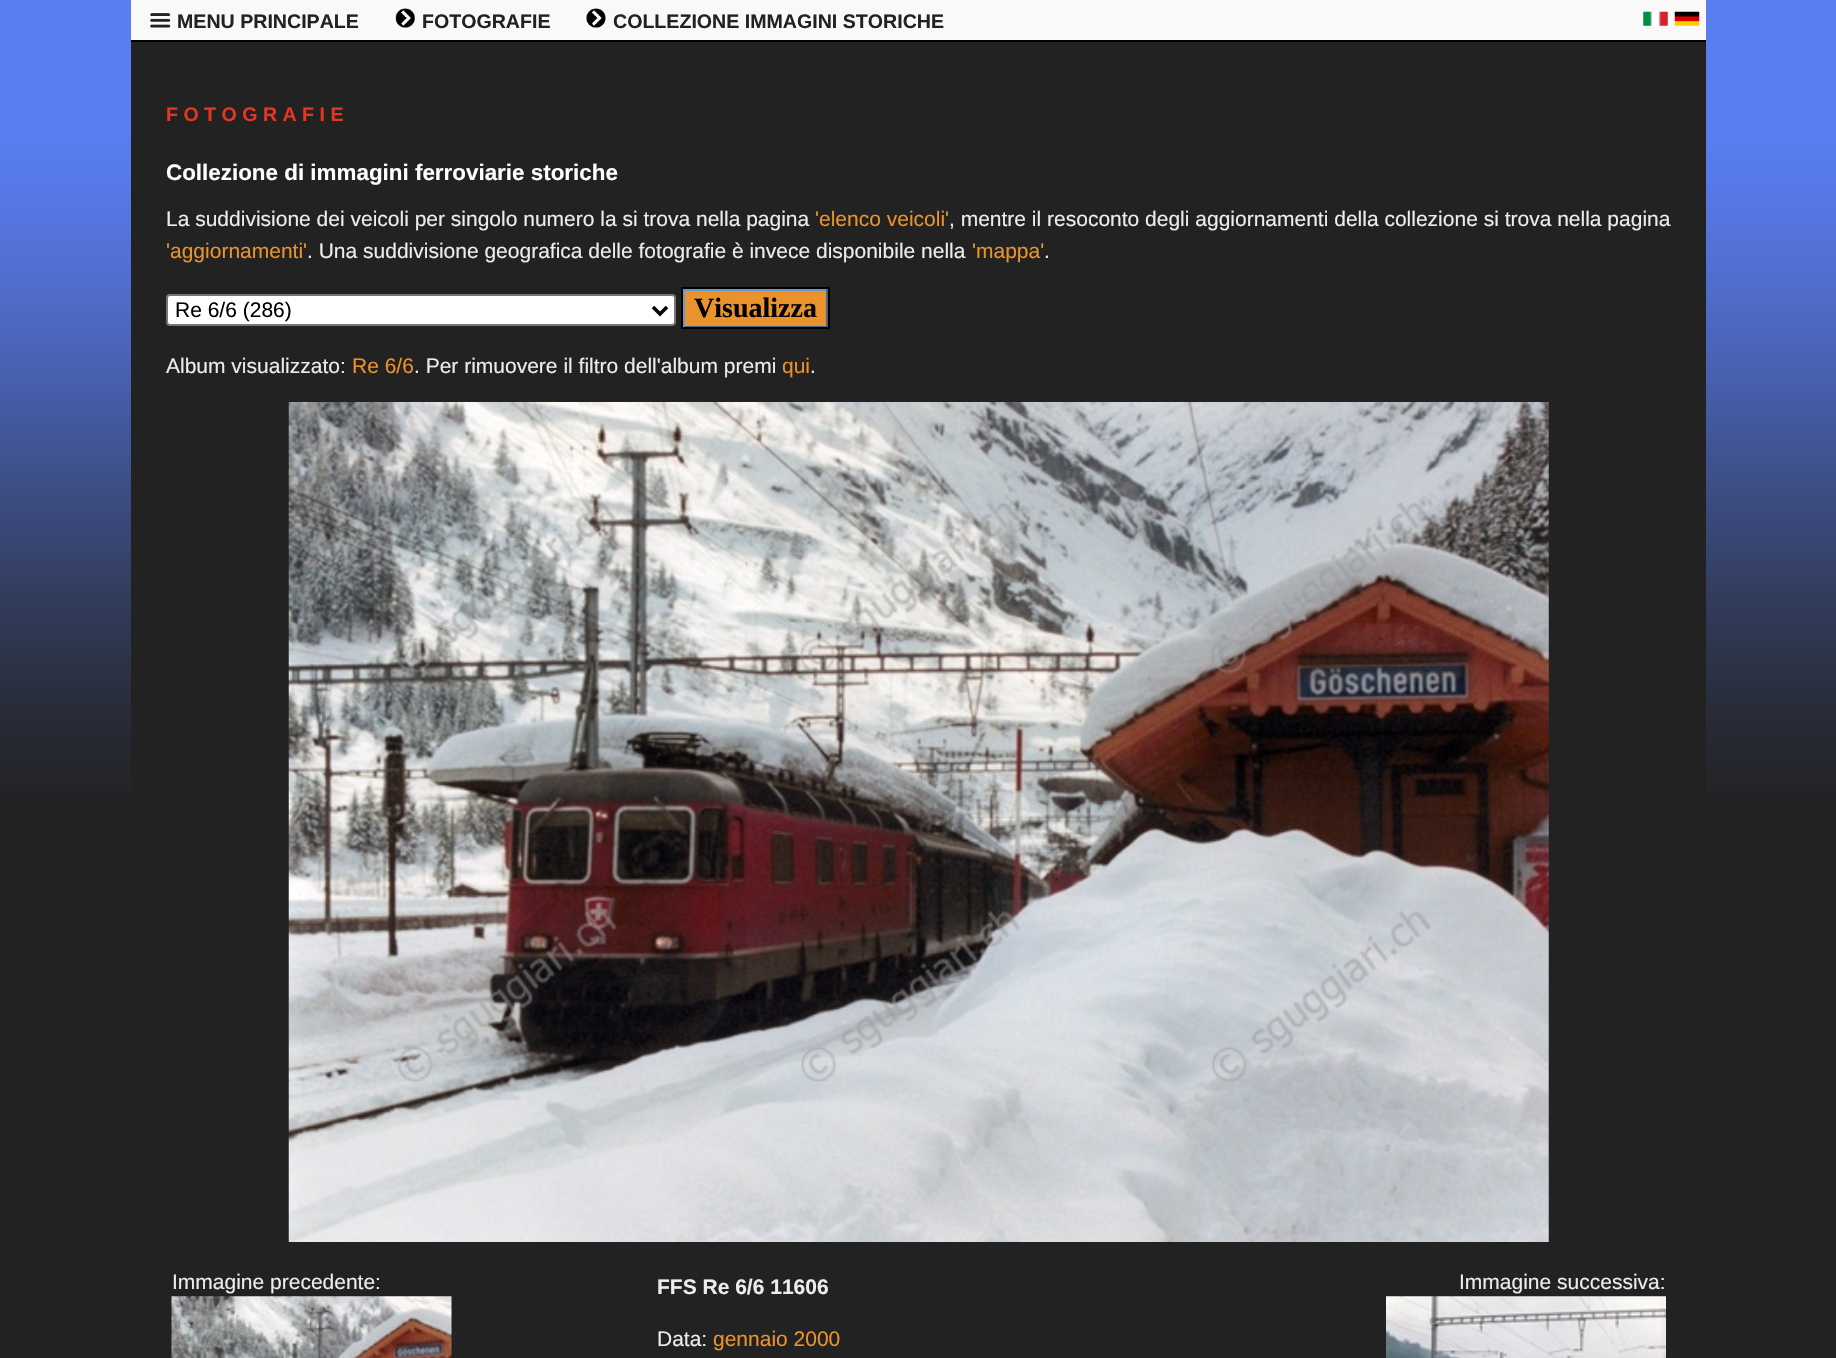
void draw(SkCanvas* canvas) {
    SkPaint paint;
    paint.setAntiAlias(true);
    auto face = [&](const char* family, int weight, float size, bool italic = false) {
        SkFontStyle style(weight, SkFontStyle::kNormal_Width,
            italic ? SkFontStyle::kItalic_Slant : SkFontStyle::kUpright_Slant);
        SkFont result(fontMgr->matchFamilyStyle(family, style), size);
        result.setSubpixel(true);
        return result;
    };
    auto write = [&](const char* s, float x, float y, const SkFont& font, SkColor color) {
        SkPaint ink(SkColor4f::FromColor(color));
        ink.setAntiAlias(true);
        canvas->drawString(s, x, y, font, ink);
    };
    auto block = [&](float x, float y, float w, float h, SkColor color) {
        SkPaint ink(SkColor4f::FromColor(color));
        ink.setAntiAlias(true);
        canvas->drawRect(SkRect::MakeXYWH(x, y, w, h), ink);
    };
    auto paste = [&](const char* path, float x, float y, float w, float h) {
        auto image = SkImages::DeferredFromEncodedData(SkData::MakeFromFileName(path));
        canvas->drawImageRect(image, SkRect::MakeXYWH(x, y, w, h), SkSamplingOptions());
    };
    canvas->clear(SkColorSetRGB(34, 34, 34));
    paste("pic1.png", 0, 0, 1836, 794);
    block(131, 42, 1575, 752, SkColorSetRGB(34, 34, 34));
    block(131, 0, 1575, 40, SkColorSetRGB(249, 249, 249));
    block(131, 40, 1575, 2, SK_ColorBLACK);
    paste("pic2.png", 150, 13, 21, 15);
    auto kFont1 = face("Liberation Sans", 700, 19.6f);
    write("MENU PRINCIPALE", 177, 28, kFont1, SkColorSetRGB(34, 34, 34));
    paste("pic3.png", 395, 8, 20, 20);
    write("FOTOGRAFIE", 422, 28, kFont1, SkColorSetRGB(34, 34, 34));
    paste("pic4.png", 586, 8, 20, 20);
    write("COLLEZIONE IMMAGINI STORICHE", 613, 28, kFont1, SkColorSetRGB(34, 34, 34));
    paste("pic5.png", 1643, 11, 25, 15);
    paste("pic6.png", 1674, 11, 26, 15);
    write("F O T O G R A F I E", 166, 121, kFont1, SkColorSetRGB(230, 54, 31));
    auto kFont2 = face("Liberation Sans", 700, 22.4f);
    write("Collezione di immagini ferroviarie storiche", 166, 180, kFont2, SK_ColorWHITE);
    auto kFont3 = face("Liberation Sans", 400, 21);
    write("La suddivisione dei veicoli per singolo numero la si trova nella pagina", 166, 226, kFont3, SkColorSetRGB(236, 236, 236));
    write("'elenco veicoli'", 815, 226, kFont3, SkColorSetRGB(234, 146, 43));
    write(", mentre il resoconto degli aggiornamenti della collezione si trova nella pagina", 949, 226, kFont3, SkColorSetRGB(236, 236, 236));
    write("'aggiornamenti'", 166, 258, kFont3, SkColorSetRGB(234, 146, 43));
    write(". Una suddivisione geografica delle fotografie è invece disponibile nella", 307, 258, kFont3, SkColorSetRGB(236, 236, 236));
    write("'mappa'", 972, 258, kFont3, SkColorSetRGB(234, 146, 43));
    write(".", 1044, 258, kFont3, SkColorSetRGB(236, 236, 236));
    paint.setColor(SK_ColorWHITE);
    canvas->drawRoundRect(SkRect::MakeXYWH(167, 295, 508, 30), 3, 3, paint);
    paint.setStyle(SkPaint::kStroke_Style);
    paint.setStrokeWidth(2);
    paint.setColor(SkColorSetRGB(118, 118, 118));
    canvas->drawRoundRect(SkRect::MakeXYWH(167, 295, 508, 30), 3, 3, paint);
    paint.setStrokeWidth(3.5f);
    paint.setColor(SK_ColorBLACK);
    canvas->drawPath(SkPathBuilder().moveTo(653, 307).lineTo(660, 314).lineTo(667, 307).detach(), paint);
    write("Re 6/6 (286)", 175, 317, kFont3, SK_ColorBLACK);
    block(685, 291, 141, 35, SkColorSetRGB(234, 146, 43));
    block(683, 289, 145, 2, SkColorSetRGB(102, 153, 204));
    block(826, 289, 2, 38, SkColorSetRGB(68, 102, 136));
    block(683, 326, 145, 1, SkColorSetRGB(68, 102, 136));
    block(683, 289, 2, 38, SkColorSetRGB(102, 153, 204));
    paint.setStrokeWidth(2);
    canvas->drawRect(SkRect::MakeXYWH(682, 288, 147, 40), paint);
    auto kFont4 = face("Liberation Serif", 700, 28);
    write("Visualizza", 694, 317, kFont4, SK_ColorBLACK);
    write("Album visualizzato:", 166, 373, kFont3, SkColorSetRGB(236, 236, 236));
    write("Re 6/6", 352, 373, kFont3, SkColorSetRGB(234, 146, 43));
    write(". Per rimuovere il filtro dell'album premi", 414, 373, kFont3, SkColorSetRGB(236, 236, 236));
    write("qui", 782, 373, kFont3, SkColorSetRGB(234, 146, 43));
    write(".", 810, 373, kFont3, SkColorSetRGB(236, 236, 236));
    paste("pic7.png", 288, 402, 1261, 840);
    write("Immagine precedente:", 172, 1289, kFont3, SkColorSetRGB(236, 236, 236));
    paste("pic8.png", 171, 1296, 281, 62);
    auto kFont5 = face("Liberation Sans", 700, 21);
    write("FFS Re 6/6 11606", 657, 1294, kFont5, SkColorSetRGB(236, 236, 236));
    write("Data:", 657, 1346, kFont3, SkColorSetRGB(236, 236, 236));
    write("gennaio 2000", 713, 1346, kFont3, SkColorSetRGB(234, 146, 43));
    write("Immagine successiva:", 1459, 1289, kFont3, SkColorSetRGB(236, 236, 236));
    paste("pic9.png", 1386, 1296, 280, 62);
}
